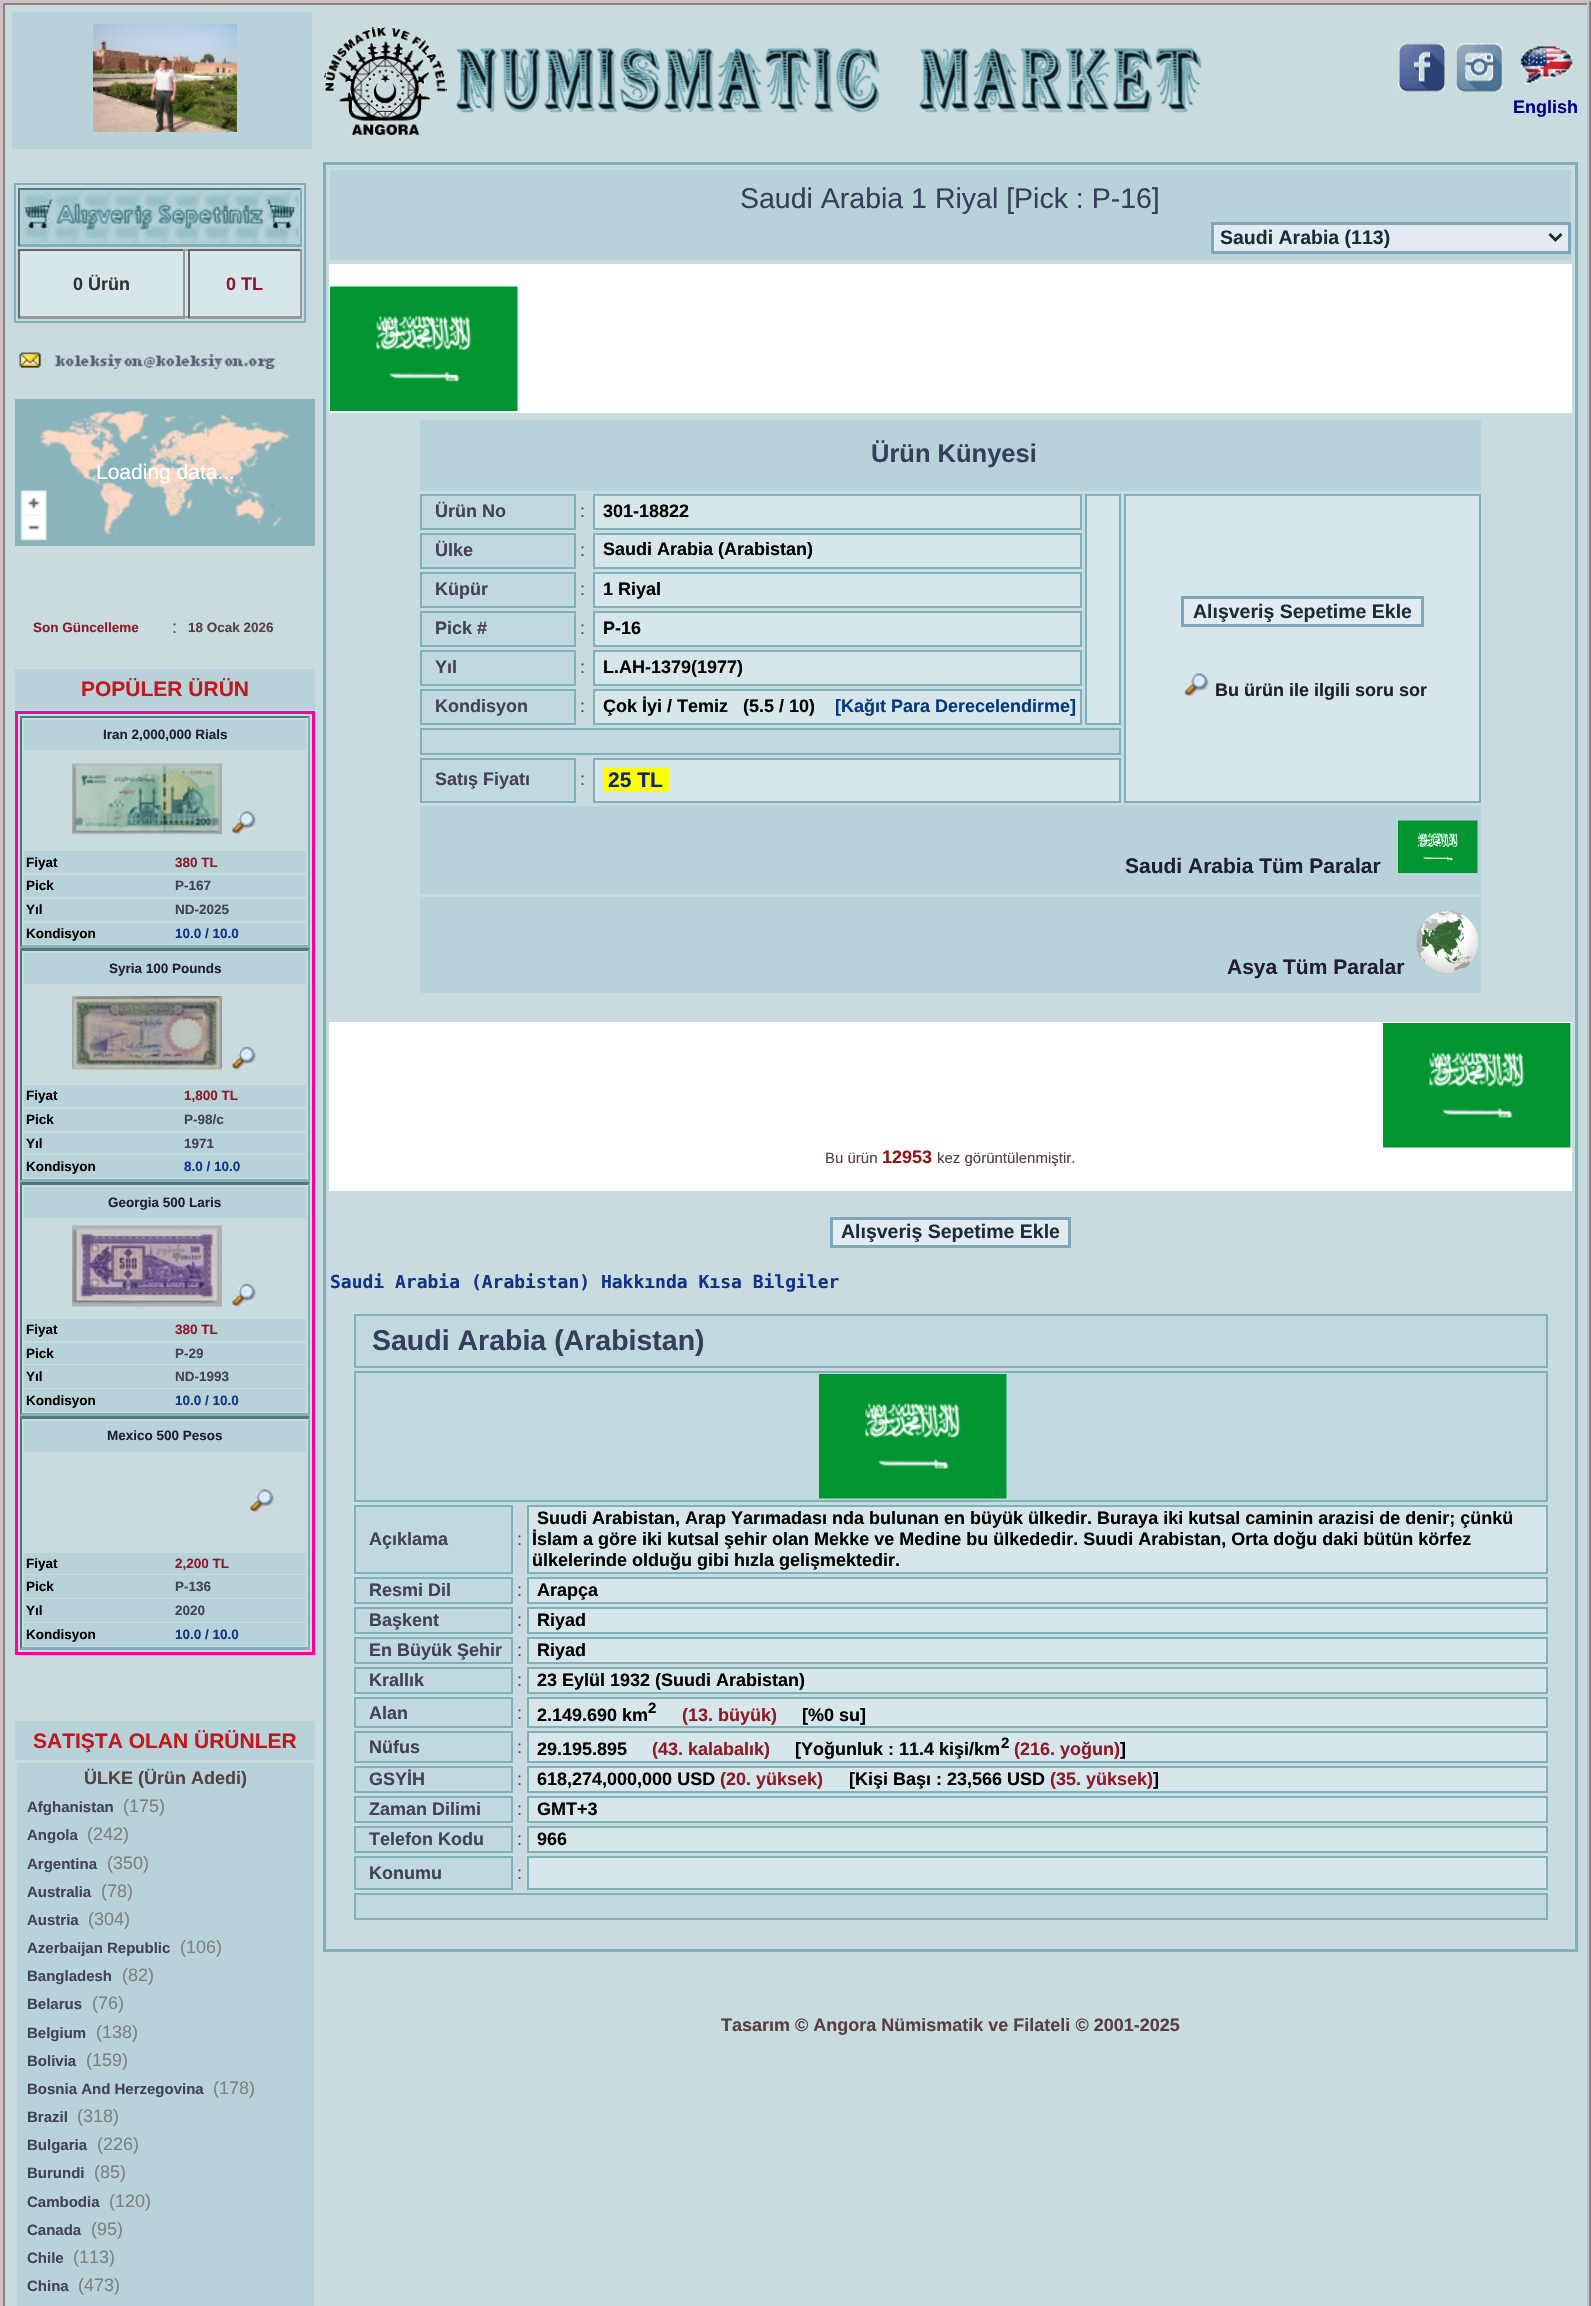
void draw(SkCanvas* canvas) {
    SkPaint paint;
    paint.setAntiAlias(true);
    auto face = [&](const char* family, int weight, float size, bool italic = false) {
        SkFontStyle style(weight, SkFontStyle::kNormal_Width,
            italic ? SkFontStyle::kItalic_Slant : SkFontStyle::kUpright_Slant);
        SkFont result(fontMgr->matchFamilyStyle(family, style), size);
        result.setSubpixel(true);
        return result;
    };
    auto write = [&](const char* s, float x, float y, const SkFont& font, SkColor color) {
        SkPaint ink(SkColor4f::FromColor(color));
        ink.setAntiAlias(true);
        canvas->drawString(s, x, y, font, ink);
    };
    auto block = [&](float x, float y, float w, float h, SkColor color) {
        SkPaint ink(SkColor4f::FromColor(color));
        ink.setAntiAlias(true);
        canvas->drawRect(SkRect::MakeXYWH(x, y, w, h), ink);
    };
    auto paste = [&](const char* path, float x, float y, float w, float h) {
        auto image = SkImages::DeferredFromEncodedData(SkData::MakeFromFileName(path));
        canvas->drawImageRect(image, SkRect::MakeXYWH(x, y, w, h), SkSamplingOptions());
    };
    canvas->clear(SkColorSetRGB(200, 219, 223));
    paint.setColor(SkColorSetRGB(207, 193, 193));
    canvas->drawPath(SkPathBuilder().moveTo(0, 0).lineTo(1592, 0).lineTo(1588, 3).lineTo(3, 3).close().detach(), paint);
    paint.setColor(SkColorSetRGB(138, 129, 129));
    canvas->drawPath(SkPathBuilder().moveTo(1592, 0).lineTo(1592, 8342).lineTo(1588, 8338).lineTo(1588, 3).close().detach(), paint);
    paint.setColor(SkColorSetRGB(207, 193, 193));
    canvas->drawPath(SkPathBuilder().moveTo(0, 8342).lineTo(0, 0).lineTo(3, 3).lineTo(3, 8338).close().detach(), paint);
    block(3, 3, 1586, 2, SkColorSetRGB(138, 129, 129));
    block(1587, 3, 2, 2303, SkColorSetRGB(207, 193, 193));
    block(3, 3, 2, 2303, SkColorSetRGB(138, 129, 129));
    block(12, 12, 300, 137, SkColorSetRGB(183, 211, 217));
    paste("pic1.png", 93, 24, 144, 108);
    paste("pic2.png", 324, 27, 123, 108);
    paste("pic3.png", 455, 47, 747, 66);
    paste("pic4.png", 1398, 43, 47, 49);
    paste("pic5.png", 1456, 43, 47, 49);
    paste("pic6.png", 1520, 46, 53, 39);
    auto kFont1 = face("Liberation Sans", 700, 18);
    write("English", 1513, 113, kFont1, SkColorSetRGB(0, 0, 128));
    paint.setStyle(SkPaint::kStroke_Style);
    paint.setStrokeWidth(2);
    paint.setColor(SkColorSetRGB(128, 176, 186));
    canvas->drawRect(SkRect::MakeXYWH(15, 184, 290, 138), paint);
    paint.setStyle(SkPaint::kFill_Style);
    paint.setColor(SkColorSetRGB(183, 211, 217));
    canvas->drawRect(SkRect::MakeXYWH(19, 189, 282, 56), paint);
    paint.setStyle(SkPaint::kStroke_Style);
    paint.setColor(SkColorSetRGB(128, 176, 186));
    canvas->drawRect(SkRect::MakeXYWH(19, 189, 282, 56), paint);
    block(18, 188, 284, 2, SkColorSetRGB(85, 117, 124));
    block(300, 188, 2, 2, SkColorSetRGB(128, 176, 186));
    block(18, 246, 284, 1, SkColorSetRGB(128, 176, 186));
    block(18, 188, 2, 58, SkColorSetRGB(85, 117, 124));
    paste("pic7.png", 21, 190, 278, 53);
    paint.setStyle(SkPaint::kFill_Style);
    paint.setColor(SkColorSetRGB(214, 230, 234));
    canvas->drawRect(SkRect::MakeXYWH(19, 250, 282, 67), paint);
    paint.setStyle(SkPaint::kStroke_Style);
    paint.setColor(SkColorSetRGB(153, 153, 153));
    canvas->drawRect(SkRect::MakeXYWH(19, 250, 282, 67), paint);
    block(18, 249, 167, 2, SkColorSetRGB(102, 102, 102));
    block(183, 249, 2, 69, SkColorSetRGB(153, 153, 153));
    block(18, 318, 167, 1, SkColorSetRGB(153, 153, 153));
    block(18, 249, 2, 69, SkColorSetRGB(102, 102, 102));
    write("0 Ürün", 73, 290, kFont1, SkColorSetRGB(51, 51, 51));
    block(188, 249, 114, 2, SkColorSetRGB(102, 102, 102));
    block(300, 249, 2, 2, SkColorSetRGB(153, 153, 153));
    block(188, 318, 114, 1, SkColorSetRGB(153, 153, 153));
    block(188, 249, 2, 69, SkColorSetRGB(102, 102, 102));
    write("0 TL", 226, 290, kFont1, SkColorSetRGB(140, 26, 39));
    paste("pic8.png", 19, 352, 22, 16);
    paste("pic9.png", 55, 354, 220, 15);
    block(15, 399, 300, 147, SkColorSetRGB(137, 180, 188));
    paste("pic10.png", 20, 410, 270, 131);
    auto kFont2 = face("Liberation Sans", 400, 21);
    write("Loading data...", 96, 479, kFont2, SK_ColorWHITE);
    auto kFont3 = face("Liberation Sans", 700, 13.5f);
    write("Son Güncelleme", 33, 632, kFont3, SkColorSetRGB(140, 26, 39));
    auto kFont4 = face("Liberation Sans", 400, 18);
    write(":", 172, 633, kFont4, SkColorSetRGB(87, 63, 67));
    write("18 Ocak 2026", 188, 632, kFont3, SkColorSetRGB(87, 63, 67));
    block(15, 669, 300, 41, SkColorSetRGB(183, 211, 217));
    auto kFont5 = face("Liberation Sans", 700, 21);
    write("POPÜLER ÜRÜN", 81, 696, kFont5, SkColorSetRGB(195, 23, 27));
    paint.setStrokeWidth(3);
    paint.setColor(SkColorSetRGB(255, 1, 150));
    canvas->drawRect(SkRect::MakeXYWH(16.5f, 712.5f, 297, 941), paint);
    paint.setStyle(SkPaint::kFill_Style);
    paint.setColor(SkColorSetRGB(85, 117, 124));
    canvas->drawPath(SkPathBuilder().moveTo(20, 716).lineTo(310, 716).lineTo(308, 718).lineTo(22, 718).close().detach(), paint);
    paint.setColor(SkColorSetRGB(128, 176, 186));
    canvas->drawPath(SkPathBuilder().moveTo(310, 716).lineTo(310, 948).lineTo(308, 945).lineTo(308, 718).close().detach(), paint);
    canvas->drawPath(SkPathBuilder().moveTo(310, 948).lineTo(20, 948).lineTo(22, 945).lineTo(308, 945).close().detach(), paint);
    paint.setColor(SkColorSetRGB(85, 117, 124));
    canvas->drawPath(SkPathBuilder().moveTo(20, 948).lineTo(20, 716).lineTo(22, 718).lineTo(22, 945).close().detach(), paint);
    block(24, 720, 282, 30, SkColorSetRGB(183, 211, 217));
    write("Iran 2,000,000 Rials", 103, 739, kFont3, SkColorSetRGB(32, 30, 48));
    paste("pic11.png", 72, 763, 150, 71);
    paste("pic12.png", 232, 811, 25, 23);
    block(24, 851, 282, 22, SkColorSetRGB(183, 211, 217));
    write("Fiyat", 26, 867, kFont3, SK_ColorBLACK);
    write("380 TL", 175, 867, kFont3, SkColorSetRGB(140, 26, 39));
    block(24, 875, 282, 22, SkColorSetRGB(183, 211, 217));
    write("Pick", 26, 890, kFont3, SK_ColorBLACK);
    write("P-167", 175, 890, kFont3, SkColorSetRGB(67, 64, 88));
    block(24, 899, 282, 22, SkColorSetRGB(183, 211, 217));
    write("Yıl", 26, 914, kFont3, SK_ColorBLACK);
    write("ND-2025", 175, 914, kFont3, SkColorSetRGB(67, 64, 88));
    block(24, 923, 282, 21, SkColorSetRGB(183, 211, 217));
    write("Kondisyon", 26, 938, kFont3, SK_ColorBLACK);
    write("10.0 / 10.0", 175, 938, kFont3, SkColorSetRGB(17, 50, 135));
    canvas->drawPath(SkPathBuilder().moveTo(20, 948).lineTo(310, 948).lineTo(308, 951).lineTo(22, 951).close().detach(), paint);
    paint.setColor(SkColorSetRGB(128, 176, 186));
    canvas->drawPath(SkPathBuilder().moveTo(310, 948).lineTo(310, 1182).lineTo(308, 1179).lineTo(308, 951).close().detach(), paint);
    canvas->drawPath(SkPathBuilder().moveTo(310, 1182).lineTo(20, 1182).lineTo(22, 1179).lineTo(308, 1179).close().detach(), paint);
    paint.setColor(SkColorSetRGB(85, 117, 124));
    canvas->drawPath(SkPathBuilder().moveTo(20, 1182).lineTo(20, 948).lineTo(22, 951).lineTo(22, 1179).close().detach(), paint);
    block(24, 953, 282, 31, SkColorSetRGB(183, 211, 217));
    write("Syria 100 Pounds", 109, 973, kFont3, SkColorSetRGB(32, 30, 48));
    paste("pic13.png", 72, 996, 150, 74);
    paste("pic14.png", 232, 1046, 25, 24);
    block(24, 1085, 282, 22, SkColorSetRGB(183, 211, 217));
    write("Fiyat", 26, 1100, kFont3, SK_ColorBLACK);
    write("1,800 TL", 184, 1100, kFont3, SkColorSetRGB(140, 26, 39));
    block(24, 1109, 282, 22, SkColorSetRGB(183, 211, 217));
    write("Pick", 26, 1124, kFont3, SK_ColorBLACK);
    write("P-98/c", 184, 1124, kFont3, SkColorSetRGB(67, 64, 88));
    block(24, 1133, 282, 21, SkColorSetRGB(183, 211, 217));
    write("Yıl", 26, 1148, kFont3, SK_ColorBLACK);
    write("1971", 184, 1148, kFont3, SkColorSetRGB(67, 64, 88));
    block(24, 1155, 282, 23, SkColorSetRGB(183, 211, 217));
    write("Kondisyon", 26, 1171, kFont3, SK_ColorBLACK);
    write("8.0 / 10.0", 184, 1171, kFont3, SkColorSetRGB(17, 50, 135));
    canvas->drawPath(SkPathBuilder().moveTo(20, 1182).lineTo(310, 1182).lineTo(308, 1185).lineTo(22, 1185).close().detach(), paint);
    paint.setColor(SkColorSetRGB(128, 176, 186));
    canvas->drawPath(SkPathBuilder().moveTo(310, 1182).lineTo(310, 1416).lineTo(308, 1413).lineTo(308, 1185).close().detach(), paint);
    canvas->drawPath(SkPathBuilder().moveTo(310, 1416).lineTo(20, 1416).lineTo(22, 1413).lineTo(308, 1413).close().detach(), paint);
    paint.setColor(SkColorSetRGB(85, 117, 124));
    canvas->drawPath(SkPathBuilder().moveTo(20, 1416).lineTo(20, 1182).lineTo(22, 1185).lineTo(22, 1413).close().detach(), paint);
    block(24, 1187, 282, 31, SkColorSetRGB(183, 211, 217));
    write("Georgia 500 Laris", 108, 1207, kFont3, SkColorSetRGB(32, 30, 48));
    paste("pic15.png", 72, 1225, 150, 82);
    paste("pic14.png", 232, 1283, 25, 24);
    block(24, 1319, 282, 22, SkColorSetRGB(183, 211, 217));
    write("Fiyat", 26, 1334, kFont3, SK_ColorBLACK);
    write("380 TL", 175, 1334, kFont3, SkColorSetRGB(140, 26, 39));
    block(24, 1343, 282, 21, SkColorSetRGB(183, 211, 217));
    write("Pick", 26, 1358, kFont3, SK_ColorBLACK);
    write("P-29", 175, 1358, kFont3, SkColorSetRGB(67, 64, 88));
    block(24, 1365, 282, 23, SkColorSetRGB(183, 211, 217));
    write("Yıl", 26, 1381, kFont3, SK_ColorBLACK);
    write("ND-1993", 175, 1381, kFont3, SkColorSetRGB(67, 64, 88));
    block(24, 1389, 282, 23, SkColorSetRGB(183, 211, 217));
    write("Kondisyon", 26, 1405, kFont3, SK_ColorBLACK);
    write("10.0 / 10.0", 175, 1405, kFont3, SkColorSetRGB(17, 50, 135));
    canvas->drawPath(SkPathBuilder().moveTo(20, 1416).lineTo(310, 1416).lineTo(308, 1419).lineTo(22, 1419).close().detach(), paint);
    paint.setColor(SkColorSetRGB(128, 176, 186));
    canvas->drawPath(SkPathBuilder().moveTo(310, 1416).lineTo(310, 1650).lineTo(308, 1647).lineTo(308, 1419).close().detach(), paint);
    canvas->drawPath(SkPathBuilder().moveTo(310, 1650).lineTo(20, 1650).lineTo(22, 1647).lineTo(308, 1647).close().detach(), paint);
    paint.setColor(SkColorSetRGB(85, 117, 124));
    canvas->drawPath(SkPathBuilder().moveTo(20, 1650).lineTo(20, 1416).lineTo(22, 1419).lineTo(22, 1647).close().detach(), paint);
    block(24, 1421, 282, 31, SkColorSetRGB(183, 211, 217));
    write("Mexico 500 Pesos", 107, 1440, kFont3, SkColorSetRGB(32, 30, 48));
    paste("pic12.png", 250, 1489, 25, 23);
    block(24, 1553, 282, 21, SkColorSetRGB(183, 211, 217));
    write("Fiyat", 26, 1568, kFont3, SK_ColorBLACK);
    write("2,200 TL", 175, 1568, kFont3, SkColorSetRGB(140, 26, 39));
    block(24, 1575, 282, 23, SkColorSetRGB(183, 211, 217));
    write("Pick", 26, 1591, kFont3, SK_ColorBLACK);
    write("P-136", 175, 1591, kFont3, SkColorSetRGB(67, 64, 88));
    block(24, 1599, 282, 23, SkColorSetRGB(183, 211, 217));
    write("Yıl", 26, 1615, kFont3, SK_ColorBLACK);
    write("2020", 175, 1615, kFont3, SkColorSetRGB(67, 64, 88));
    block(24, 1623, 282, 23, SkColorSetRGB(183, 211, 217));
    write("Kondisyon", 26, 1639, kFont3, SK_ColorBLACK);
    write("10.0 / 10.0", 175, 1639, kFont3, SkColorSetRGB(17, 50, 135));
    block(15, 1721, 300, 39, SkColorSetRGB(183, 211, 217));
    write("SATIŞTA OLAN ÜRÜNLER", 33, 1748, kFont5, SkColorSetRGB(195, 23, 27));
    block(17, 1763, 297, 543, SkColorSetRGB(183, 211, 217));
    write("ÜLKE (Ürün Adedi)", 84, 1784, kFont1, SkColorSetRGB(87, 63, 67));
    auto kFont6 = face("Liberation Sans", 700, 15);
    write("Afghanistan", 27, 1812, kFont6, SkColorSetRGB(67, 64, 88));
    write("(175)", 123, 1812, kFont4, SkColorSetRGB(128, 128, 128));
    write("Angola", 27, 1840, kFont6, SkColorSetRGB(67, 64, 88));
    write("(242)", 87, 1840, kFont4, SkColorSetRGB(128, 128, 128));
    write("Argentina", 27, 1869, kFont6, SkColorSetRGB(67, 64, 88));
    write("(350)", 107, 1869, kFont4, SkColorSetRGB(128, 128, 128));
    write("Australia", 27, 1897, kFont6, SkColorSetRGB(67, 64, 88));
    write("(78)", 101, 1897, kFont4, SkColorSetRGB(128, 128, 128));
    write("Austria", 27, 1925, kFont6, SkColorSetRGB(67, 64, 88));
    write("(304)", 88, 1925, kFont4, SkColorSetRGB(128, 128, 128));
    write("Azerbaijan Republic", 27, 1953, kFont6, SkColorSetRGB(67, 64, 88));
    write("(106)", 180, 1953, kFont4, SkColorSetRGB(128, 128, 128));
    write("Bangladesh", 27, 1981, kFont6, SkColorSetRGB(67, 64, 88));
    write("(82)", 122, 1981, kFont4, SkColorSetRGB(128, 128, 128));
    write("Belarus", 27, 2009, kFont6, SkColorSetRGB(67, 64, 88));
    write("(76)", 92, 2009, kFont4, SkColorSetRGB(128, 128, 128));
    write("Belgium", 27, 2038, kFont6, SkColorSetRGB(67, 64, 88));
    write("(138)", 96, 2038, kFont4, SkColorSetRGB(128, 128, 128));
    write("Bolivia", 27, 2066, kFont6, SkColorSetRGB(67, 64, 88));
    write("(159)", 86, 2066, kFont4, SkColorSetRGB(128, 128, 128));
    write("Bosnia And Herzegovina", 27, 2094, kFont6, SkColorSetRGB(67, 64, 88));
    write("(178)", 213, 2094, kFont4, SkColorSetRGB(128, 128, 128));
    write("Brazil", 27, 2122, kFont6, SkColorSetRGB(67, 64, 88));
    write("(318)", 77, 2122, kFont4, SkColorSetRGB(128, 128, 128));
    write("Bulgaria", 27, 2150, kFont6, SkColorSetRGB(67, 64, 88));
    write("(226)", 97, 2150, kFont4, SkColorSetRGB(128, 128, 128));
    write("Burundi", 27, 2178, kFont6, SkColorSetRGB(67, 64, 88));
    write("(85)", 94, 2178, kFont4, SkColorSetRGB(128, 128, 128));
    write("Cambodia", 27, 2207, kFont6, SkColorSetRGB(67, 64, 88));
    write("(120)", 109, 2207, kFont4, SkColorSetRGB(128, 128, 128));
    write("Canada", 27, 2235, kFont6, SkColorSetRGB(67, 64, 88));
    write("(95)", 91, 2235, kFont4, SkColorSetRGB(128, 128, 128));
    write("Chile", 27, 2263, kFont6, SkColorSetRGB(67, 64, 88));
    write("(113)", 73, 2263, kFont4, SkColorSetRGB(128, 128, 128));
    write("China", 27, 2291, kFont6, SkColorSetRGB(67, 64, 88));
    write("(473)", 78, 2291, kFont4, SkColorSetRGB(128, 128, 128));
    paint.setStyle(SkPaint::kStroke_Style);
    paint.setColor(SkColorSetRGB(128, 176, 186));
    canvas->drawRect(SkRect::MakeXYWH(324.5f, 163.5f, 1252, 1787), paint);
    block(330, 170, 1241, 90, SkColorSetRGB(183, 211, 217));
    auto kFont7 = face("Liberation Sans", 400, 28.5f);
    write("Saudi Arabia 1 Riyal [Pick : P-16]", 740, 208, kFont7, SkColorSetRGB(53, 62, 91));
    paint.setStyle(SkPaint::kFill_Style);
    paint.setColor(SkColorSetRGB(226, 235, 240));
    canvas->drawRect(SkRect::MakeXYWH(1212.5f, 223.5f, 357, 29), paint);
    paint.setStyle(SkPaint::kStroke_Style);
    paint.setColor(SkColorSetRGB(127, 167, 187));
    canvas->drawRect(SkRect::MakeXYWH(1212.5f, 223.5f, 357, 29), paint);
    paint.setColor(SkColorSetRGB(25, 45, 57));
    canvas->drawPath(SkPathBuilder().moveTo(1549.5f, 234).lineTo(1555.5f, 240).lineTo(1561.5f, 234).detach(), paint);
    auto kFont8 = face("Liberation Sans", 700, 19.5f);
    write("Saudi Arabia (113)", 1220, 244, kFont8, SkColorSetRGB(25, 45, 57));
    block(329, 264, 1243, 149, SK_ColorWHITE);
    paste("pic16.png", 330, 286, 188, 125);
    block(420, 420, 1061, 71, SkColorSetRGB(183, 211, 217));
    auto kFont9 = face("Liberation Sans", 700, 25.5f);
    write("Ürün Künyesi", 871, 462, kFont9, SkColorSetRGB(53, 62, 91));
    paint.setStyle(SkPaint::kFill_Style);
    paint.setColor(SkColorSetRGB(192, 217, 222));
    canvas->drawRect(SkRect::MakeXYWH(421, 495, 154, 34), paint);
    paint.setStyle(SkPaint::kStroke_Style);
    paint.setStrokeWidth(2);
    paint.setColor(SkColorSetRGB(128, 176, 186));
    canvas->drawRect(SkRect::MakeXYWH(421, 495, 154, 34), paint);
    write("Ürün No", 435, 517, kFont1, SkColorSetRGB(67, 64, 88));
    write(":", 580, 517, kFont4, SkColorSetRGB(87, 63, 67));
    paint.setStyle(SkPaint::kFill_Style);
    paint.setColor(SkColorSetRGB(214, 230, 234));
    canvas->drawRect(SkRect::MakeXYWH(594, 495, 487, 34), paint);
    paint.setStyle(SkPaint::kStroke_Style);
    paint.setColor(SkColorSetRGB(128, 176, 186));
    canvas->drawRect(SkRect::MakeXYWH(594, 495, 487, 34), paint);
    write("301-18822", 603, 517, kFont1, SK_ColorBLACK);
    paint.setStyle(SkPaint::kFill_Style);
    paint.setColor(SkColorSetRGB(214, 230, 234));
    canvas->drawRect(SkRect::MakeXYWH(1086, 495, 34, 229), paint);
    paint.setStyle(SkPaint::kStroke_Style);
    paint.setColor(SkColorSetRGB(128, 176, 186));
    canvas->drawRect(SkRect::MakeXYWH(1086, 495, 34, 229), paint);
    paint.setStyle(SkPaint::kFill_Style);
    paint.setColor(SkColorSetRGB(214, 230, 234));
    canvas->drawRect(SkRect::MakeXYWH(1125, 495, 355, 307), paint);
    paint.setStyle(SkPaint::kStroke_Style);
    paint.setColor(SkColorSetRGB(128, 176, 186));
    canvas->drawRect(SkRect::MakeXYWH(1125, 495, 355, 307), paint);
    paint.setStyle(SkPaint::kFill_Style);
    paint.setColor(SkColorSetRGB(226, 235, 240));
    canvas->drawRect(SkRect::MakeXYWH(1182.5f, 597.5f, 240, 28), paint);
    paint.setStyle(SkPaint::kStroke_Style);
    paint.setStrokeWidth(3);
    paint.setColor(SkColorSetRGB(127, 167, 187));
    canvas->drawRect(SkRect::MakeXYWH(1182.5f, 597.5f, 240, 28), paint);
    write("Alışveriş Sepetime Ekle", 1193, 618, kFont8, SkColorSetRGB(25, 45, 57));
    paste("pic17.png", 1184, 673, 26, 23);
    write("Bu ürün ile ilgili soru sor", 1215, 696, kFont1, SkColorSetRGB(32, 30, 48));
    paint.setStyle(SkPaint::kFill_Style);
    paint.setColor(SkColorSetRGB(192, 217, 222));
    canvas->drawRect(SkRect::MakeXYWH(421, 534, 154, 34), paint);
    paint.setStyle(SkPaint::kStroke_Style);
    paint.setStrokeWidth(2);
    paint.setColor(SkColorSetRGB(128, 176, 186));
    canvas->drawRect(SkRect::MakeXYWH(421, 534, 154, 34), paint);
    write("Ülke", 435, 556, kFont1, SkColorSetRGB(67, 64, 88));
    write(":", 580, 556, kFont4, SkColorSetRGB(87, 63, 67));
    paint.setStyle(SkPaint::kFill_Style);
    paint.setColor(SkColorSetRGB(214, 230, 234));
    canvas->drawRect(SkRect::MakeXYWH(594, 534, 487, 34), paint);
    paint.setStyle(SkPaint::kStroke_Style);
    paint.setColor(SkColorSetRGB(128, 176, 186));
    canvas->drawRect(SkRect::MakeXYWH(594, 534, 487, 34), paint);
    write("Saudi Arabia (Arabistan)", 603, 555, kFont1, SK_ColorBLACK);
    paint.setStyle(SkPaint::kFill_Style);
    paint.setColor(SkColorSetRGB(192, 217, 222));
    canvas->drawRect(SkRect::MakeXYWH(421, 573, 154, 34), paint);
    paint.setStyle(SkPaint::kStroke_Style);
    paint.setColor(SkColorSetRGB(128, 176, 186));
    canvas->drawRect(SkRect::MakeXYWH(421, 573, 154, 34), paint);
    write("Küpür", 435, 595, kFont1, SkColorSetRGB(67, 64, 88));
    write(":", 580, 595, kFont4, SkColorSetRGB(87, 63, 67));
    paint.setStyle(SkPaint::kFill_Style);
    paint.setColor(SkColorSetRGB(214, 230, 234));
    canvas->drawRect(SkRect::MakeXYWH(594, 573, 487, 34), paint);
    paint.setStyle(SkPaint::kStroke_Style);
    paint.setColor(SkColorSetRGB(128, 176, 186));
    canvas->drawRect(SkRect::MakeXYWH(594, 573, 487, 34), paint);
    write("1 Riyal", 603, 595, kFont1, SK_ColorBLACK);
    paint.setStyle(SkPaint::kFill_Style);
    paint.setColor(SkColorSetRGB(192, 217, 222));
    canvas->drawRect(SkRect::MakeXYWH(421, 612, 154, 34), paint);
    paint.setStyle(SkPaint::kStroke_Style);
    paint.setColor(SkColorSetRGB(128, 176, 186));
    canvas->drawRect(SkRect::MakeXYWH(421, 612, 154, 34), paint);
    write("Pick #", 435, 634, kFont1, SkColorSetRGB(67, 64, 88));
    write(":", 580, 634, kFont4, SkColorSetRGB(87, 63, 67));
    paint.setStyle(SkPaint::kFill_Style);
    paint.setColor(SkColorSetRGB(214, 230, 234));
    canvas->drawRect(SkRect::MakeXYWH(594, 612, 487, 34), paint);
    paint.setStyle(SkPaint::kStroke_Style);
    paint.setColor(SkColorSetRGB(128, 176, 186));
    canvas->drawRect(SkRect::MakeXYWH(594, 612, 487, 34), paint);
    write("P-16", 603, 634, kFont1, SK_ColorBLACK);
    paint.setStyle(SkPaint::kFill_Style);
    paint.setColor(SkColorSetRGB(192, 217, 222));
    canvas->drawRect(SkRect::MakeXYWH(421, 651, 154, 34), paint);
    paint.setStyle(SkPaint::kStroke_Style);
    paint.setColor(SkColorSetRGB(128, 176, 186));
    canvas->drawRect(SkRect::MakeXYWH(421, 651, 154, 34), paint);
    write("Yıl", 435, 673, kFont1, SkColorSetRGB(67, 64, 88));
    write(":", 580, 673, kFont4, SkColorSetRGB(87, 63, 67));
    paint.setStyle(SkPaint::kFill_Style);
    paint.setColor(SkColorSetRGB(214, 230, 234));
    canvas->drawRect(SkRect::MakeXYWH(594, 651, 487, 34), paint);
    paint.setStyle(SkPaint::kStroke_Style);
    paint.setColor(SkColorSetRGB(128, 176, 186));
    canvas->drawRect(SkRect::MakeXYWH(594, 651, 487, 34), paint);
    write("L.AH-1379(1977)", 603, 673, kFont1, SK_ColorBLACK);
    paint.setStyle(SkPaint::kFill_Style);
    paint.setColor(SkColorSetRGB(192, 217, 222));
    canvas->drawRect(SkRect::MakeXYWH(421, 690, 154, 34), paint);
    paint.setStyle(SkPaint::kStroke_Style);
    paint.setColor(SkColorSetRGB(128, 176, 186));
    canvas->drawRect(SkRect::MakeXYWH(421, 690, 154, 34), paint);
    write("Kondisyon", 435, 712, kFont1, SkColorSetRGB(67, 64, 88));
    write(":", 580, 712, kFont4, SkColorSetRGB(87, 63, 67));
    paint.setStyle(SkPaint::kFill_Style);
    paint.setColor(SkColorSetRGB(214, 230, 234));
    canvas->drawRect(SkRect::MakeXYWH(594, 690, 487, 34), paint);
    paint.setStyle(SkPaint::kStroke_Style);
    paint.setColor(SkColorSetRGB(128, 176, 186));
    canvas->drawRect(SkRect::MakeXYWH(594, 690, 487, 34), paint);
    write("Çok İyi / Temiz   (5.5 / 10)", 603, 712, kFont1, SK_ColorBLACK);
    write("[Kağıt Para Derecelendirme]", 835, 712, kFont1, SkColorSetRGB(3, 56, 127));
    paint.setStyle(SkPaint::kFill_Style);
    paint.setColor(SkColorSetRGB(192, 217, 222));
    canvas->drawRect(SkRect::MakeXYWH(421, 729, 699, 25), paint);
    paint.setStyle(SkPaint::kStroke_Style);
    paint.setColor(SkColorSetRGB(128, 176, 186));
    canvas->drawRect(SkRect::MakeXYWH(421, 729, 699, 25), paint);
    paint.setStyle(SkPaint::kFill_Style);
    paint.setColor(SkColorSetRGB(192, 217, 222));
    canvas->drawRect(SkRect::MakeXYWH(421, 759, 154, 43), paint);
    paint.setStyle(SkPaint::kStroke_Style);
    paint.setColor(SkColorSetRGB(128, 176, 186));
    canvas->drawRect(SkRect::MakeXYWH(421, 759, 154, 43), paint);
    write("Satış Fiyatı", 435, 785, kFont1, SkColorSetRGB(67, 64, 88));
    write(":", 580, 785, kFont4, SkColorSetRGB(87, 63, 67));
    paint.setStyle(SkPaint::kFill_Style);
    paint.setColor(SkColorSetRGB(214, 230, 234));
    canvas->drawRect(SkRect::MakeXYWH(594, 759, 526, 43), paint);
    paint.setStyle(SkPaint::kStroke_Style);
    paint.setColor(SkColorSetRGB(128, 176, 186));
    canvas->drawRect(SkRect::MakeXYWH(594, 759, 526, 43), paint);
    block(603, 768, 66, 24, SkColorSetRGB(255, 255, 0));
    write("25 TL", 608, 787, kFont5, SkColorSetRGB(12, 39, 106));
    block(420, 806, 1061, 88, SkColorSetRGB(183, 211, 217));
    write("Saudi Arabia Tüm Paralar", 1125, 873, kFont5, SkColorSetRGB(32, 30, 48));
    paste("pic18.png", 1398, 820, 80, 53);
    block(420, 897, 1061, 96, SkColorSetRGB(183, 211, 217));
    write("Asya Tüm Paralar", 1227, 974, kFont5, SkColorSetRGB(32, 30, 48));
    paste("pic19.png", 1416, 910, 63, 64);
    block(329, 1022, 1243, 169, SK_ColorWHITE);
    paste("pic20.png", 1383, 1023, 188, 125);
    auto kFont10 = face("Liberation Sans", 400, 15);
    write("Bu ürün", 825, 1163, kFont10, SkColorSetRGB(87, 63, 67));
    write("12953", 882, 1163, kFont1, SkColorSetRGB(144, 24, 24));
    write("kez görüntülenmiştir.", 937, 1163, kFont10, SkColorSetRGB(87, 63, 67));
    paint.setStyle(SkPaint::kFill_Style);
    paint.setColor(SkColorSetRGB(226, 235, 240));
    canvas->drawRect(SkRect::MakeXYWH(831.5f, 1218.5f, 238, 28), paint);
    paint.setStyle(SkPaint::kStroke_Style);
    paint.setStrokeWidth(3);
    paint.setColor(SkColorSetRGB(127, 167, 187));
    canvas->drawRect(SkRect::MakeXYWH(831.5f, 1218.5f, 238, 28), paint);
    write("Alışveriş Sepetime Ekle", 841, 1238, kFont8, SkColorSetRGB(25, 45, 57));
    auto kFont11 = face("DejaVu Sans Mono", 700, 18);
    write("Saudi Arabia (Arabistan) Hakkında Kısa Bilgiler", 330, 1288, kFont11, SkColorSetRGB(17, 50, 135));
    paint.setStyle(SkPaint::kFill_Style);
    paint.setColor(SkColorSetRGB(192, 217, 222));
    canvas->drawRect(SkRect::MakeXYWH(355, 1315, 1192, 52), paint);
    paint.setStyle(SkPaint::kStroke_Style);
    paint.setStrokeWidth(2);
    paint.setColor(SkColorSetRGB(128, 176, 186));
    canvas->drawRect(SkRect::MakeXYWH(355, 1315, 1192, 52), paint);
    auto kFont12 = face("Liberation Sans", 700, 28.5f);
    write("Saudi Arabia (Arabistan)", 372, 1350, kFont12, SkColorSetRGB(53, 62, 91));
    paint.setStyle(SkPaint::kFill_Style);
    paint.setColor(SkColorSetRGB(192, 217, 222));
    canvas->drawRect(SkRect::MakeXYWH(355, 1372, 1192, 129), paint);
    paint.setStyle(SkPaint::kStroke_Style);
    paint.setColor(SkColorSetRGB(128, 176, 186));
    canvas->drawRect(SkRect::MakeXYWH(355, 1372, 1192, 129), paint);
    paste("pic21.png", 819, 1374, 188, 125);
    paint.setStyle(SkPaint::kFill_Style);
    paint.setColor(SkColorSetRGB(192, 217, 222));
    canvas->drawRect(SkRect::MakeXYWH(355, 1506, 157, 67), paint);
    paint.setStyle(SkPaint::kStroke_Style);
    paint.setColor(SkColorSetRGB(128, 176, 186));
    canvas->drawRect(SkRect::MakeXYWH(355, 1506, 157, 67), paint);
    write("Açıklama", 369, 1545, kFont1, SkColorSetRGB(67, 64, 88));
    write(":", 517, 1545, kFont4, SkColorSetRGB(87, 63, 67));
    paint.setStyle(SkPaint::kFill_Style);
    paint.setColor(SkColorSetRGB(214, 230, 234));
    canvas->drawRect(SkRect::MakeXYWH(528, 1506, 1019, 67), paint);
    paint.setStyle(SkPaint::kStroke_Style);
    paint.setColor(SkColorSetRGB(128, 176, 186));
    canvas->drawRect(SkRect::MakeXYWH(528, 1506, 1019, 67), paint);
    write("Suudi Arabistan, Arap Yarımadası nda bulunan en büyük ülkedir. Buraya iki kutsal caminin arazisi de denir; çünkü", 537, 1524, kFont1, SK_ColorBLACK);
    write("İslam a göre iki kutsal şehir olan Mekke ve Medine bu ülkededir. Suudi Arabistan, Orta doğu daki bütün körfez", 532, 1545, kFont1, SK_ColorBLACK);
    write("ülkelerinde olduğu gibi hızla gelişmektedir.", 532, 1566, kFont1, SK_ColorBLACK);
    paint.setStyle(SkPaint::kFill_Style);
    paint.setColor(SkColorSetRGB(192, 217, 222));
    canvas->drawRect(SkRect::MakeXYWH(355, 1578, 157, 25), paint);
    paint.setStyle(SkPaint::kStroke_Style);
    paint.setColor(SkColorSetRGB(128, 176, 186));
    canvas->drawRect(SkRect::MakeXYWH(355, 1578, 157, 25), paint);
    write("Resmi Dil", 369, 1596, kFont1, SkColorSetRGB(67, 64, 88));
    write(":", 517, 1596, kFont4, SkColorSetRGB(87, 63, 67));
    paint.setStyle(SkPaint::kFill_Style);
    paint.setColor(SkColorSetRGB(214, 230, 234));
    canvas->drawRect(SkRect::MakeXYWH(528, 1578, 1019, 25), paint);
    paint.setStyle(SkPaint::kStroke_Style);
    paint.setColor(SkColorSetRGB(128, 176, 186));
    canvas->drawRect(SkRect::MakeXYWH(528, 1578, 1019, 25), paint);
    write("Arapça", 537, 1596, kFont1, SK_ColorBLACK);
    paint.setStyle(SkPaint::kFill_Style);
    paint.setColor(SkColorSetRGB(192, 217, 222));
    canvas->drawRect(SkRect::MakeXYWH(355, 1608, 157, 25), paint);
    paint.setStyle(SkPaint::kStroke_Style);
    paint.setColor(SkColorSetRGB(128, 176, 186));
    canvas->drawRect(SkRect::MakeXYWH(355, 1608, 157, 25), paint);
    write("Başkent", 369, 1626, kFont1, SkColorSetRGB(67, 64, 88));
    write(":", 517, 1626, kFont4, SkColorSetRGB(87, 63, 67));
    paint.setStyle(SkPaint::kFill_Style);
    paint.setColor(SkColorSetRGB(214, 230, 234));
    canvas->drawRect(SkRect::MakeXYWH(528, 1608, 1019, 25), paint);
    paint.setStyle(SkPaint::kStroke_Style);
    paint.setColor(SkColorSetRGB(128, 176, 186));
    canvas->drawRect(SkRect::MakeXYWH(528, 1608, 1019, 25), paint);
    write("Riyad", 537, 1626, kFont1, SK_ColorBLACK);
    paint.setStyle(SkPaint::kFill_Style);
    paint.setColor(SkColorSetRGB(192, 217, 222));
    canvas->drawRect(SkRect::MakeXYWH(355, 1638, 157, 25), paint);
    paint.setStyle(SkPaint::kStroke_Style);
    paint.setColor(SkColorSetRGB(128, 176, 186));
    canvas->drawRect(SkRect::MakeXYWH(355, 1638, 157, 25), paint);
    write("En Büyük Şehir", 369, 1656, kFont1, SkColorSetRGB(67, 64, 88));
    write(":", 517, 1656, kFont4, SkColorSetRGB(87, 63, 67));
    paint.setStyle(SkPaint::kFill_Style);
    paint.setColor(SkColorSetRGB(214, 230, 234));
    canvas->drawRect(SkRect::MakeXYWH(528, 1638, 1019, 25), paint);
    paint.setStyle(SkPaint::kStroke_Style);
    paint.setColor(SkColorSetRGB(128, 176, 186));
    canvas->drawRect(SkRect::MakeXYWH(528, 1638, 1019, 25), paint);
    write("Riyad", 537, 1656, kFont1, SK_ColorBLACK);
    paint.setStyle(SkPaint::kFill_Style);
    paint.setColor(SkColorSetRGB(192, 217, 222));
    canvas->drawRect(SkRect::MakeXYWH(355, 1668, 157, 25), paint);
    paint.setStyle(SkPaint::kStroke_Style);
    paint.setColor(SkColorSetRGB(128, 176, 186));
    canvas->drawRect(SkRect::MakeXYWH(355, 1668, 157, 25), paint);
    write("Krallık", 369, 1686, kFont1, SkColorSetRGB(67, 64, 88));
    write(":", 517, 1686, kFont4, SkColorSetRGB(87, 63, 67));
    paint.setStyle(SkPaint::kFill_Style);
    paint.setColor(SkColorSetRGB(214, 230, 234));
    canvas->drawRect(SkRect::MakeXYWH(528, 1668, 1019, 25), paint);
    paint.setStyle(SkPaint::kStroke_Style);
    paint.setColor(SkColorSetRGB(128, 176, 186));
    canvas->drawRect(SkRect::MakeXYWH(528, 1668, 1019, 25), paint);
    write("23 Eylül 1932 (Suudi Arabistan)", 537, 1686, kFont1, SK_ColorBLACK);
    paint.setStyle(SkPaint::kFill_Style);
    paint.setColor(SkColorSetRGB(192, 217, 222));
    canvas->drawRect(SkRect::MakeXYWH(355, 1698, 157, 29), paint);
    paint.setStyle(SkPaint::kStroke_Style);
    paint.setColor(SkColorSetRGB(128, 176, 186));
    canvas->drawRect(SkRect::MakeXYWH(355, 1698, 157, 29), paint);
    write("Alan", 369, 1719, kFont1, SkColorSetRGB(67, 64, 88));
    write(":", 517, 1719, kFont4, SkColorSetRGB(87, 63, 67));
    paint.setStyle(SkPaint::kFill_Style);
    paint.setColor(SkColorSetRGB(214, 230, 234));
    canvas->drawRect(SkRect::MakeXYWH(528, 1698, 1019, 29), paint);
    paint.setStyle(SkPaint::kStroke_Style);
    paint.setColor(SkColorSetRGB(128, 176, 186));
    canvas->drawRect(SkRect::MakeXYWH(528, 1698, 1019, 29), paint);
    write("2.149.690 km", 537, 1721, kFont1, SK_ColorBLACK);
    write("2", 648, 1713, kFont6, SK_ColorBLACK);
    write("(13. büyük)", 682, 1721, kFont1, SkColorSetRGB(140, 26, 39));
    write("[%0 su]", 802, 1721, kFont1, SK_ColorBLACK);
    paint.setStyle(SkPaint::kFill_Style);
    paint.setColor(SkColorSetRGB(192, 217, 222));
    canvas->drawRect(SkRect::MakeXYWH(355, 1732, 157, 30), paint);
    paint.setStyle(SkPaint::kStroke_Style);
    paint.setColor(SkColorSetRGB(128, 176, 186));
    canvas->drawRect(SkRect::MakeXYWH(355, 1732, 157, 30), paint);
    write("Nüfus", 369, 1753, kFont1, SkColorSetRGB(67, 64, 88));
    write(":", 517, 1753, kFont4, SkColorSetRGB(87, 63, 67));
    paint.setStyle(SkPaint::kFill_Style);
    paint.setColor(SkColorSetRGB(214, 230, 234));
    canvas->drawRect(SkRect::MakeXYWH(528, 1732, 1019, 30), paint);
    paint.setStyle(SkPaint::kStroke_Style);
    paint.setColor(SkColorSetRGB(128, 176, 186));
    canvas->drawRect(SkRect::MakeXYWH(528, 1732, 1019, 30), paint);
    write("29.195.895", 537, 1755, kFont1, SK_ColorBLACK);
    write("(43. kalabalık)", 652, 1755, kFont1, SkColorSetRGB(140, 26, 39));
    write("[Yoğunluk : 11.4 kişi/km", 795, 1755, kFont1, SK_ColorBLACK);
    write("2", 1001, 1748, kFont6, SK_ColorBLACK);
    write("(216. yoğun)", 1014, 1755, kFont1, SkColorSetRGB(140, 26, 39));
    write("]", 1120, 1755, kFont1, SK_ColorBLACK);
    paint.setStyle(SkPaint::kFill_Style);
    paint.setColor(SkColorSetRGB(192, 217, 222));
    canvas->drawRect(SkRect::MakeXYWH(355, 1767, 157, 25), paint);
    paint.setStyle(SkPaint::kStroke_Style);
    paint.setColor(SkColorSetRGB(128, 176, 186));
    canvas->drawRect(SkRect::MakeXYWH(355, 1767, 157, 25), paint);
    write("GSYİH", 369, 1785, kFont1, SkColorSetRGB(67, 64, 88));
    write(":", 517, 1785, kFont4, SkColorSetRGB(87, 63, 67));
    paint.setStyle(SkPaint::kFill_Style);
    paint.setColor(SkColorSetRGB(214, 230, 234));
    canvas->drawRect(SkRect::MakeXYWH(528, 1767, 1019, 25), paint);
    paint.setStyle(SkPaint::kStroke_Style);
    paint.setColor(SkColorSetRGB(128, 176, 186));
    canvas->drawRect(SkRect::MakeXYWH(528, 1767, 1019, 25), paint);
    write("618,274,000,000 USD", 537, 1785, kFont1, SK_ColorBLACK);
    write("(20. yüksek)", 720, 1785, kFont1, SkColorSetRGB(140, 26, 39));
    write("[Kişi Başı : 23,566 USD", 849, 1785, kFont1, SK_ColorBLACK);
    write("(35. yüksek)", 1050, 1785, kFont1, SkColorSetRGB(140, 26, 39));
    write("]", 1153, 1785, kFont1, SK_ColorBLACK);
    paint.setStyle(SkPaint::kFill_Style);
    paint.setColor(SkColorSetRGB(192, 217, 222));
    canvas->drawRect(SkRect::MakeXYWH(355, 1797, 157, 25), paint);
    paint.setStyle(SkPaint::kStroke_Style);
    paint.setColor(SkColorSetRGB(128, 176, 186));
    canvas->drawRect(SkRect::MakeXYWH(355, 1797, 157, 25), paint);
    write("Zaman Dilimi", 369, 1815, kFont1, SkColorSetRGB(67, 64, 88));
    write(":", 517, 1815, kFont4, SkColorSetRGB(87, 63, 67));
    paint.setStyle(SkPaint::kFill_Style);
    paint.setColor(SkColorSetRGB(214, 230, 234));
    canvas->drawRect(SkRect::MakeXYWH(528, 1797, 1019, 25), paint);
    paint.setStyle(SkPaint::kStroke_Style);
    paint.setColor(SkColorSetRGB(128, 176, 186));
    canvas->drawRect(SkRect::MakeXYWH(528, 1797, 1019, 25), paint);
    write("GMT+3", 537, 1815, kFont1, SK_ColorBLACK);
    paint.setStyle(SkPaint::kFill_Style);
    paint.setColor(SkColorSetRGB(192, 217, 222));
    canvas->drawRect(SkRect::MakeXYWH(355, 1827, 157, 25), paint);
    paint.setStyle(SkPaint::kStroke_Style);
    paint.setColor(SkColorSetRGB(128, 176, 186));
    canvas->drawRect(SkRect::MakeXYWH(355, 1827, 157, 25), paint);
    write("Telefon Kodu", 369, 1845, kFont1, SkColorSetRGB(67, 64, 88));
    write(":", 517, 1845, kFont4, SkColorSetRGB(87, 63, 67));
    paint.setStyle(SkPaint::kFill_Style);
    paint.setColor(SkColorSetRGB(214, 230, 234));
    canvas->drawRect(SkRect::MakeXYWH(528, 1827, 1019, 25), paint);
    paint.setStyle(SkPaint::kStroke_Style);
    paint.setColor(SkColorSetRGB(128, 176, 186));
    canvas->drawRect(SkRect::MakeXYWH(528, 1827, 1019, 25), paint);
    write("966", 537, 1845, kFont1, SK_ColorBLACK);
    paint.setStyle(SkPaint::kFill_Style);
    paint.setColor(SkColorSetRGB(192, 217, 222));
    canvas->drawRect(SkRect::MakeXYWH(355, 1857, 157, 32), paint);
    paint.setStyle(SkPaint::kStroke_Style);
    paint.setColor(SkColorSetRGB(128, 176, 186));
    canvas->drawRect(SkRect::MakeXYWH(355, 1857, 157, 32), paint);
    write("Konumu", 369, 1879, kFont1, SkColorSetRGB(67, 64, 88));
    write(":", 517, 1879, kFont4, SkColorSetRGB(87, 63, 67));
    paint.setStyle(SkPaint::kFill_Style);
    paint.setColor(SkColorSetRGB(214, 230, 234));
    canvas->drawRect(SkRect::MakeXYWH(528, 1857, 1019, 32), paint);
    paint.setStyle(SkPaint::kStroke_Style);
    paint.setColor(SkColorSetRGB(128, 176, 186));
    canvas->drawRect(SkRect::MakeXYWH(528, 1857, 1019, 32), paint);
    paint.setStyle(SkPaint::kFill_Style);
    paint.setColor(SkColorSetRGB(192, 217, 222));
    canvas->drawRect(SkRect::MakeXYWH(355, 1894, 1192, 25), paint);
    paint.setStyle(SkPaint::kStroke_Style);
    paint.setColor(SkColorSetRGB(128, 176, 186));
    canvas->drawRect(SkRect::MakeXYWH(355, 1894, 1192, 25), paint);
    write("Tasarım © Angora Nümismatik ve Filateli © 2001-2025", 721, 2031, kFont1, SkColorSetRGB(87, 63, 67));
}
